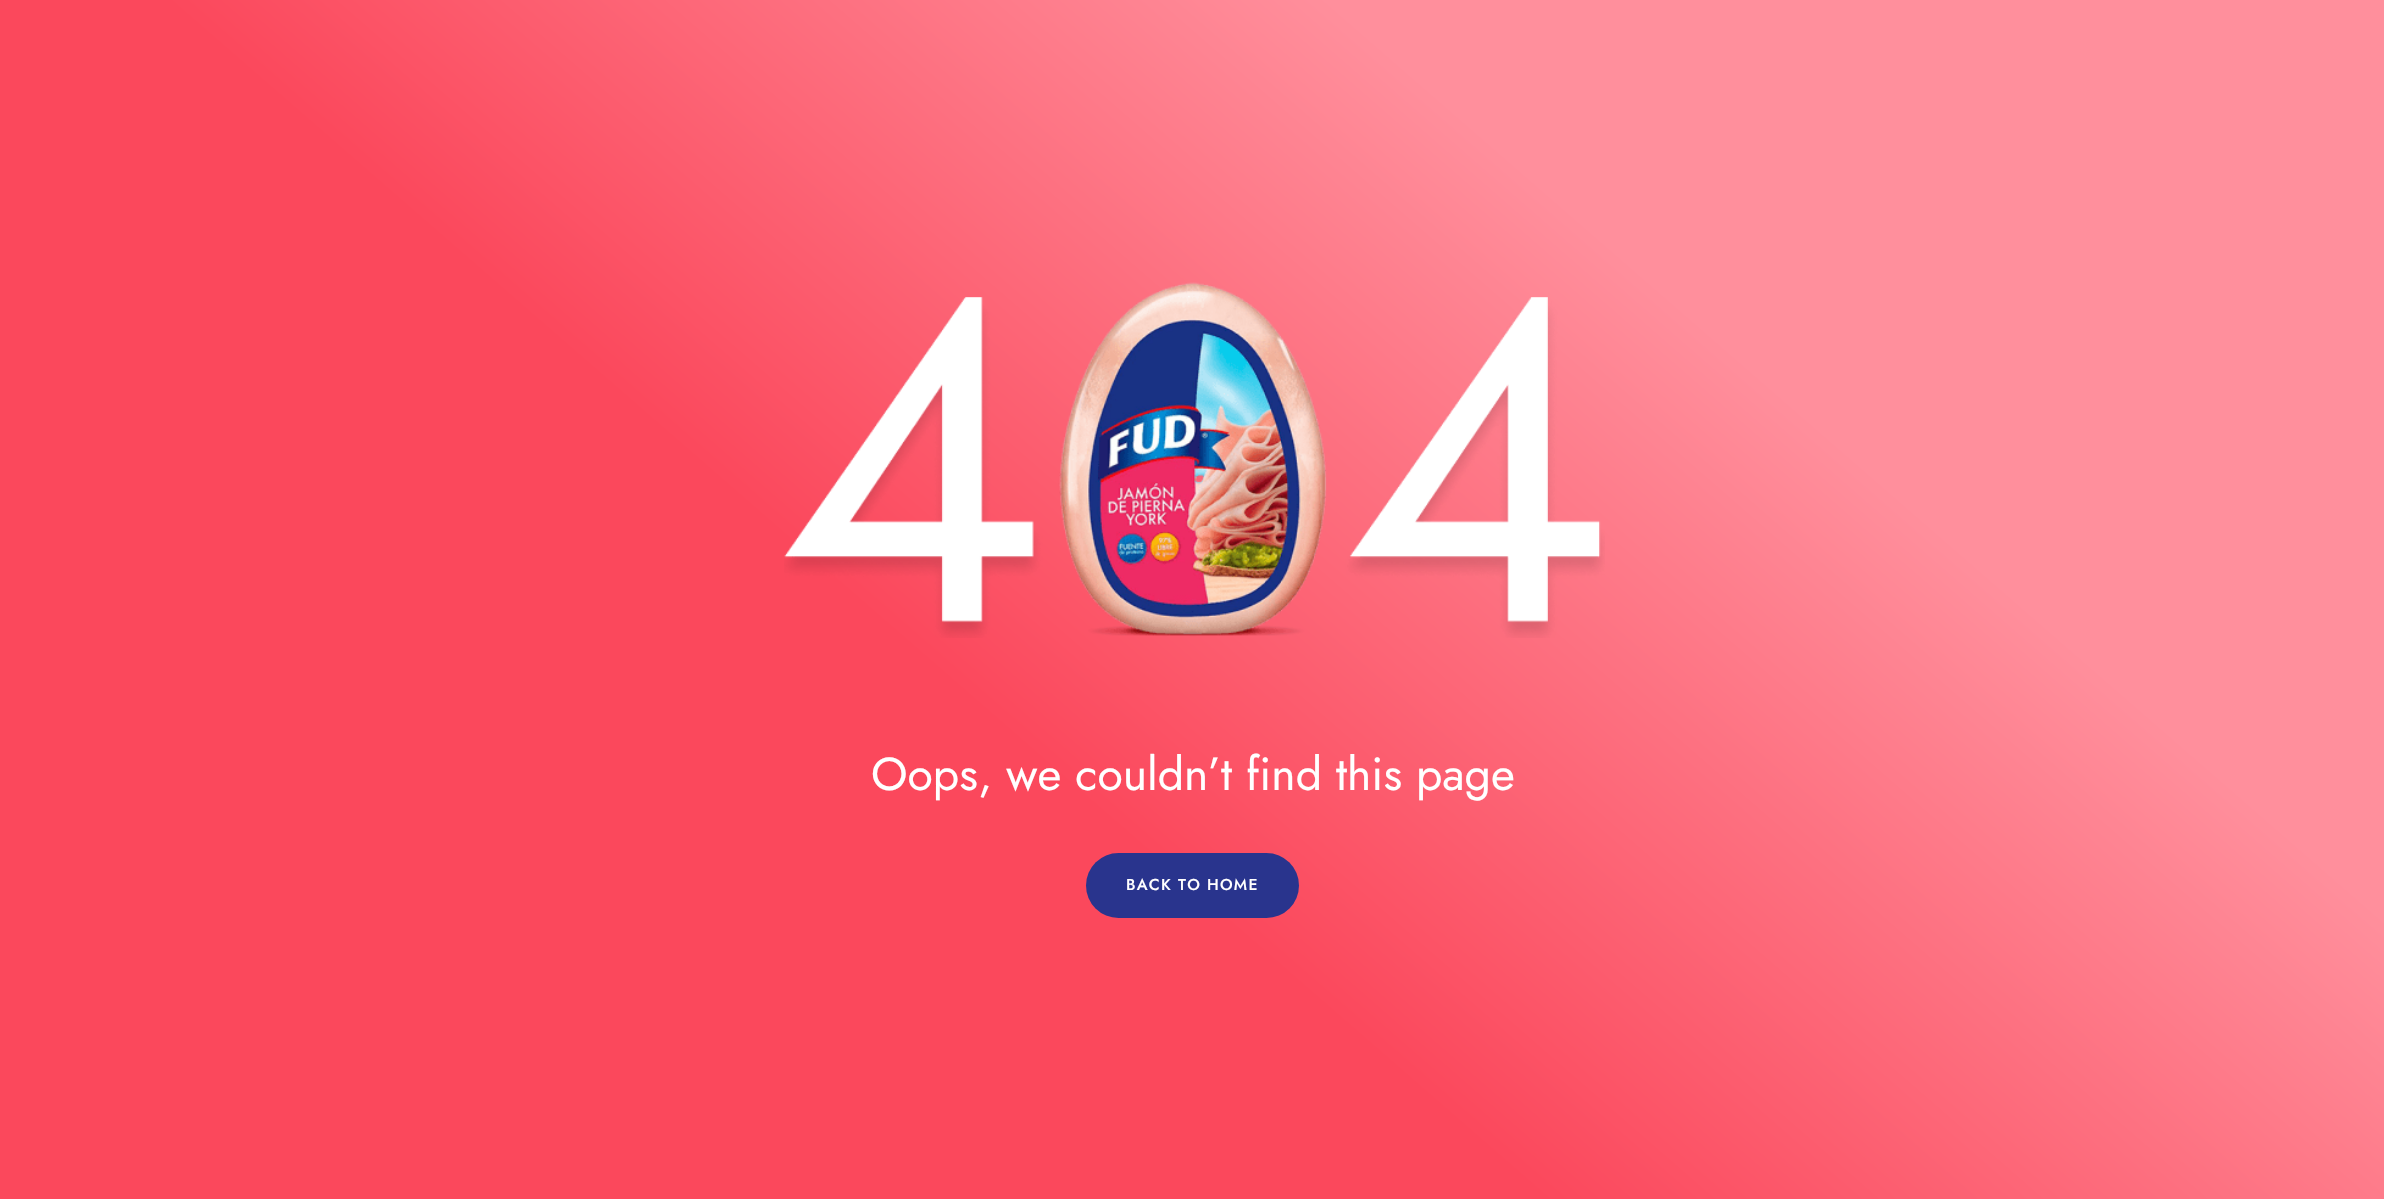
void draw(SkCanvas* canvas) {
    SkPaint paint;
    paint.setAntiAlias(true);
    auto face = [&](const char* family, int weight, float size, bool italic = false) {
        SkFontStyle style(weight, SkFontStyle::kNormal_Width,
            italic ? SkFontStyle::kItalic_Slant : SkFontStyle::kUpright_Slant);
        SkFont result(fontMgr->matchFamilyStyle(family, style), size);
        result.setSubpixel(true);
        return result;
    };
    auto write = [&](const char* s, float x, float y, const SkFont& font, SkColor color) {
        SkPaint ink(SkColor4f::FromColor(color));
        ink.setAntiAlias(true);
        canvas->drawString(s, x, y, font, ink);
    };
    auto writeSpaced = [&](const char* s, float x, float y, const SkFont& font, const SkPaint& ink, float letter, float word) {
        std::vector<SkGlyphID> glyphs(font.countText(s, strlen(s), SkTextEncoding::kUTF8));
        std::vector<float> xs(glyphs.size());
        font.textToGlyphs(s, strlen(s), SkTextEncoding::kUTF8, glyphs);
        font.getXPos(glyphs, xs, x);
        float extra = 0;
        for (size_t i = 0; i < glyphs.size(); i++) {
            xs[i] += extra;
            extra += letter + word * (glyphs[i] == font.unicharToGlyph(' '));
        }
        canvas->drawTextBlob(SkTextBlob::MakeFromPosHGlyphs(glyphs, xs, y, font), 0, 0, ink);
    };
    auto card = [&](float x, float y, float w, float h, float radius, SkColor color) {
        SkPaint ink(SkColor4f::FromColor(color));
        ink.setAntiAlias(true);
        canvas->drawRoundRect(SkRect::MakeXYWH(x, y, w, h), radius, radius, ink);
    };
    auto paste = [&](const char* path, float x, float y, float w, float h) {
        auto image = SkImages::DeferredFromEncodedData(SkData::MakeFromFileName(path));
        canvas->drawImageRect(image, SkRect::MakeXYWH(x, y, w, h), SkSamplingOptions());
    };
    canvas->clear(SK_ColorWHITE);
    {
        const SkColor colors[] = {SkColorSetRGB(255, 143, 156), SkColorSetRGB(251, 72, 92)};
        const float stops[] = {0.28f, 0.59f};
        const SkPoint ends[] = {{2003, -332}, {382, 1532}};
        paint.setShader(SkGradientShader::MakeLinear(ends, colors, stops, 2, SkTileMode::kClamp));
        paint.setAlpha(255);
    }
    canvas->drawRect(SkRect::MakeXYWH(0, 0, 2384, 1199), paint);
    paste("pic1.png", 784, 282, 821, 356);
    auto kFont1 = face("Jost", 400, 46.3f);
    write("Oops, we couldn’t find this page", 871, 790, kFont1, SK_ColorWHITE);
    card(1086, 853, 213, 65, 32.5f, SkColorSetRGB(41, 52, 141));
    auto kFont2 = face("Jost", 500, 15.75f);
    paint.setShader(nullptr);
    paint.setColor(SK_ColorWHITE);
    writeSpaced("BACK TO HOME", 1126, 890, kFont2, paint, 1.25f, 0);
}
